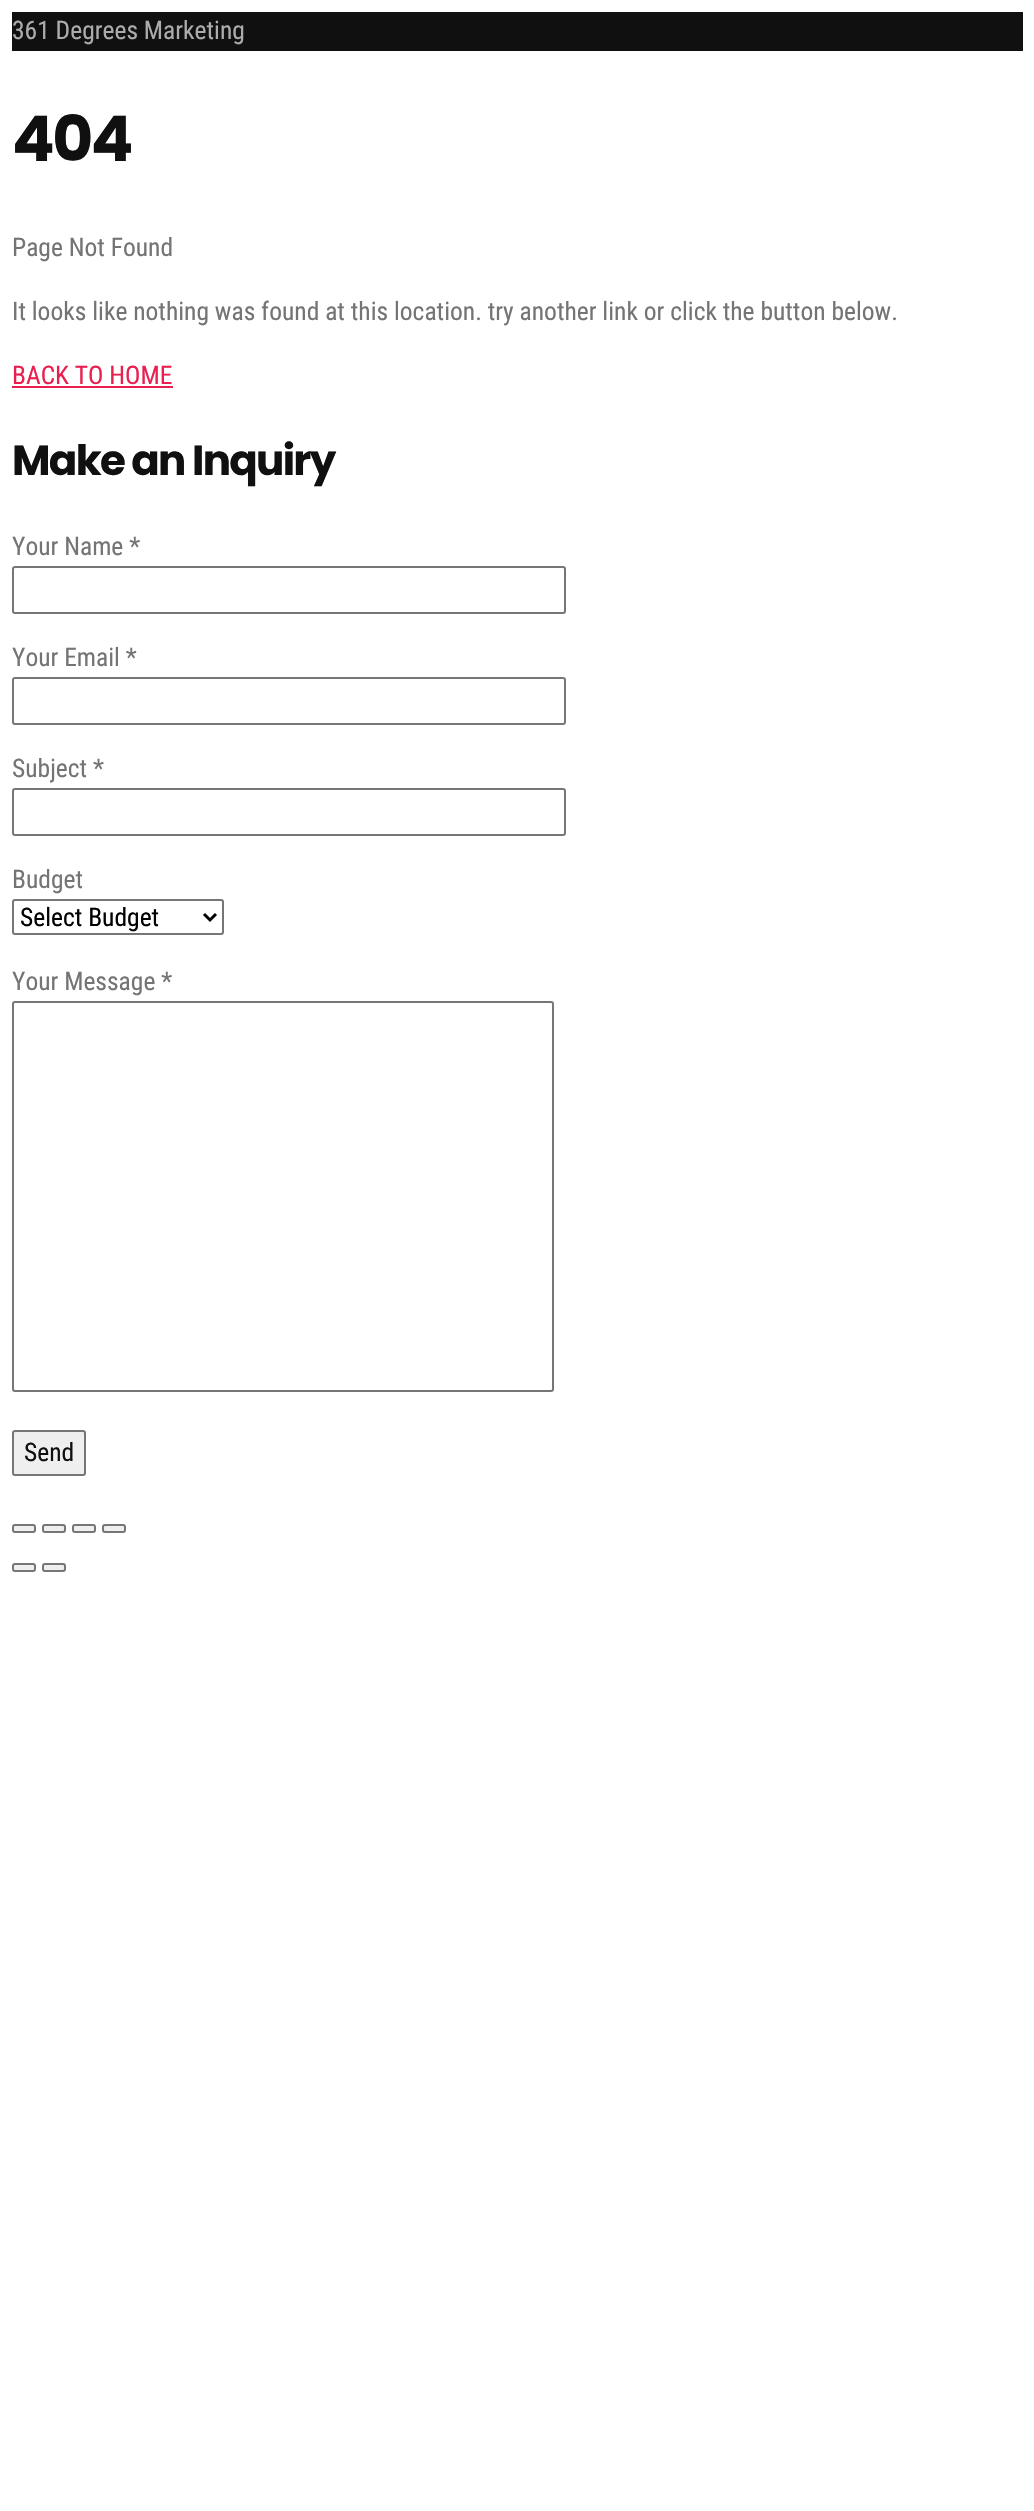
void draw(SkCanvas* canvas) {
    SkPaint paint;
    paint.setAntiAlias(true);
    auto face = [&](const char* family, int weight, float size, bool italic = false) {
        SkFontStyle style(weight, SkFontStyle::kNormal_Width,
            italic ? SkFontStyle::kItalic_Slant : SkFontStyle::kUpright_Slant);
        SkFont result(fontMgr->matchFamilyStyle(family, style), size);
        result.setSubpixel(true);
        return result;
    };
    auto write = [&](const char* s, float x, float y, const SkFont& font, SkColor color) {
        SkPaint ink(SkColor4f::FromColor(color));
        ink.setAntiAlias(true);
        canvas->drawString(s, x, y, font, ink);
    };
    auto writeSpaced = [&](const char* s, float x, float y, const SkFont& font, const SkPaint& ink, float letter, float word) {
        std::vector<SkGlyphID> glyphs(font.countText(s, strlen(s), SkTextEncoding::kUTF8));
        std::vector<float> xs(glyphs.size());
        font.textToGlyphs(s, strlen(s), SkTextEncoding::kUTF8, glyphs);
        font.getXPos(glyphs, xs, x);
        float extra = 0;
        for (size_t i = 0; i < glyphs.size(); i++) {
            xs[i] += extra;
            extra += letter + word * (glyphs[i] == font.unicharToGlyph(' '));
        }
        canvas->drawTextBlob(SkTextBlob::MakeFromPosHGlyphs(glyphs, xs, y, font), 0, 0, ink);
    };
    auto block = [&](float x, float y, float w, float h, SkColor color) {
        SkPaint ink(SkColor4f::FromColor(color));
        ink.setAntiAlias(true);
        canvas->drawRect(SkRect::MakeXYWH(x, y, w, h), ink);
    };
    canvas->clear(SK_ColorWHITE);
    block(12, 12, 1011, 39, SkColorSetRGB(16, 16, 16));
    auto kFont1 = face("Roboto Condensed", 400, 25.5f);
    write("361 Degrees Marketing", 12, 39, kFont1, SkColorSetRGB(172, 172, 172));
    auto kFont2 = face("Poppins", 700, 63);
    paint.setColor(SkColorSetRGB(16, 16, 16));
    writeSpaced("404", 12, 161, kFont2, paint, -2.5f, 0);
    write("Page Not Found", 12, 256, kFont1, SkColorSetRGB(116, 116, 116));
    write("It looks like nothing was found at this location. try another link or click the button below.", 12, 320, kFont1, SkColorSetRGB(116, 116, 116));
    write("BACK TO HOME", 12, 384, kFont1, SkColorSetRGB(233, 32, 79));
    block(12, 386, 161, 2, SkColorSetRGB(233, 32, 79));
    auto kFont3 = face("Poppins", 700, 42);
    writeSpaced("Make an Inquiry", 12, 475, kFont3, paint, -1.7f, 0);
    write("Your Name *", 12, 555, kFont1, SkColorSetRGB(116, 116, 116));
    paint.setStyle(SkPaint::kStroke_Style);
    paint.setStrokeWidth(2);
    paint.setColor(SkColorSetRGB(118, 118, 118));
    canvas->drawRoundRect(SkRect::MakeXYWH(13, 567, 552, 46), 2, 2, paint);
    write("Your Email *", 12, 666, kFont1, SkColorSetRGB(116, 116, 116));
    canvas->drawRoundRect(SkRect::MakeXYWH(13, 678, 552, 46), 2, 2, paint);
    write("Subject *", 12, 777, kFont1, SkColorSetRGB(116, 116, 116));
    canvas->drawRoundRect(SkRect::MakeXYWH(13, 789, 552, 46), 2, 2, paint);
    write("Budget", 12, 888, kFont1, SkColorSetRGB(116, 116, 116));
    canvas->drawRoundRect(SkRect::MakeXYWH(13, 900, 210, 34), 2, 2, paint);
    paint.setStrokeWidth(3);
    paint.setColor(SK_ColorBLACK);
    canvas->drawPath(SkPathBuilder().moveTo(204, 914).lineTo(210, 920).lineTo(216, 914).detach(), paint);
    write("Select Budget", 20, 926, kFont1, SK_ColorBLACK);
    write("Your Message *", 12, 990, kFont1, SkColorSetRGB(116, 116, 116));
    paint.setStrokeWidth(2);
    paint.setColor(SkColorSetRGB(118, 118, 118));
    canvas->drawRoundRect(SkRect::MakeXYWH(13, 1002, 540, 389), 2, 2, paint);
    paint.setStyle(SkPaint::kFill_Style);
    paint.setColor(SkColorSetRGB(239, 239, 239));
    canvas->drawRoundRect(SkRect::MakeXYWH(13, 1431, 72, 44), 2, 2, paint);
    paint.setStyle(SkPaint::kStroke_Style);
    paint.setColor(SkColorSetRGB(118, 118, 118));
    canvas->drawRoundRect(SkRect::MakeXYWH(13, 1431, 72, 44), 2, 2, paint);
    write("Send", 24, 1461, kFont1, SkColorSetRGB(16, 16, 16));
    paint.setStyle(SkPaint::kFill_Style);
    paint.setColor(SkColorSetRGB(239, 239, 239));
    canvas->drawRoundRect(SkRect::MakeXYWH(13, 1525, 22, 7), 2, 2, paint);
    paint.setStyle(SkPaint::kStroke_Style);
    paint.setColor(SkColorSetRGB(118, 118, 118));
    canvas->drawRoundRect(SkRect::MakeXYWH(13, 1525, 22, 7), 2, 2, paint);
    paint.setStyle(SkPaint::kFill_Style);
    paint.setColor(SkColorSetRGB(239, 239, 239));
    canvas->drawRoundRect(SkRect::MakeXYWH(43, 1525, 22, 7), 2, 2, paint);
    paint.setStyle(SkPaint::kStroke_Style);
    paint.setColor(SkColorSetRGB(118, 118, 118));
    canvas->drawRoundRect(SkRect::MakeXYWH(43, 1525, 22, 7), 2, 2, paint);
    paint.setStyle(SkPaint::kFill_Style);
    paint.setColor(SkColorSetRGB(239, 239, 239));
    canvas->drawRoundRect(SkRect::MakeXYWH(73, 1525, 22, 7), 2, 2, paint);
    paint.setStyle(SkPaint::kStroke_Style);
    paint.setColor(SkColorSetRGB(118, 118, 118));
    canvas->drawRoundRect(SkRect::MakeXYWH(73, 1525, 22, 7), 2, 2, paint);
    paint.setStyle(SkPaint::kFill_Style);
    paint.setColor(SkColorSetRGB(239, 239, 239));
    canvas->drawRoundRect(SkRect::MakeXYWH(103, 1525, 22, 7), 2, 2, paint);
    paint.setStyle(SkPaint::kStroke_Style);
    paint.setColor(SkColorSetRGB(118, 118, 118));
    canvas->drawRoundRect(SkRect::MakeXYWH(103, 1525, 22, 7), 2, 2, paint);
    paint.setStyle(SkPaint::kFill_Style);
    paint.setColor(SkColorSetRGB(239, 239, 239));
    canvas->drawRoundRect(SkRect::MakeXYWH(13, 1564, 22, 7), 2, 2, paint);
    paint.setStyle(SkPaint::kStroke_Style);
    paint.setColor(SkColorSetRGB(118, 118, 118));
    canvas->drawRoundRect(SkRect::MakeXYWH(13, 1564, 22, 7), 2, 2, paint);
    paint.setStyle(SkPaint::kFill_Style);
    paint.setColor(SkColorSetRGB(239, 239, 239));
    canvas->drawRoundRect(SkRect::MakeXYWH(43, 1564, 22, 7), 2, 2, paint);
    paint.setStyle(SkPaint::kStroke_Style);
    paint.setColor(SkColorSetRGB(118, 118, 118));
    canvas->drawRoundRect(SkRect::MakeXYWH(43, 1564, 22, 7), 2, 2, paint);
}
